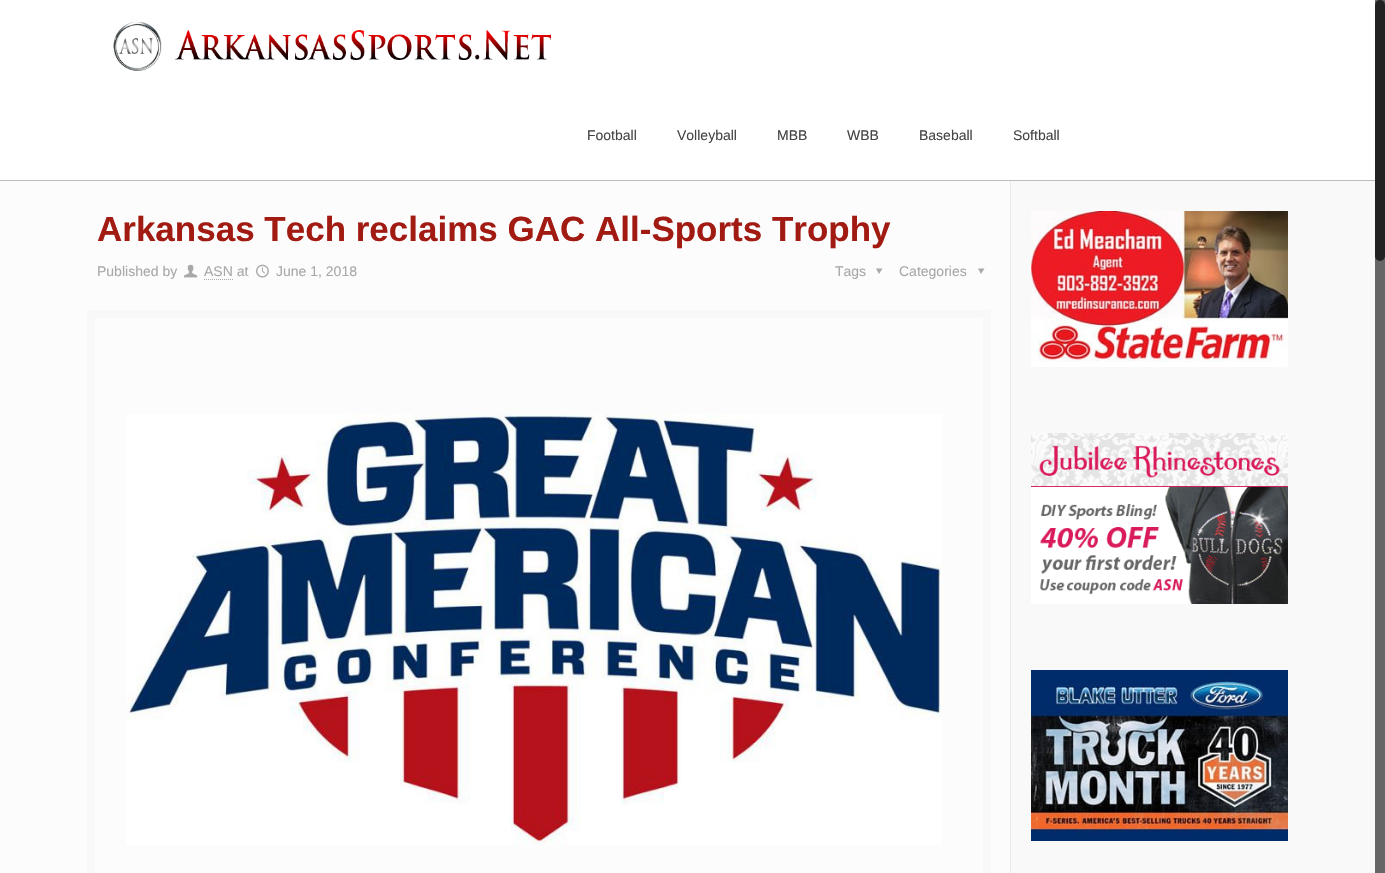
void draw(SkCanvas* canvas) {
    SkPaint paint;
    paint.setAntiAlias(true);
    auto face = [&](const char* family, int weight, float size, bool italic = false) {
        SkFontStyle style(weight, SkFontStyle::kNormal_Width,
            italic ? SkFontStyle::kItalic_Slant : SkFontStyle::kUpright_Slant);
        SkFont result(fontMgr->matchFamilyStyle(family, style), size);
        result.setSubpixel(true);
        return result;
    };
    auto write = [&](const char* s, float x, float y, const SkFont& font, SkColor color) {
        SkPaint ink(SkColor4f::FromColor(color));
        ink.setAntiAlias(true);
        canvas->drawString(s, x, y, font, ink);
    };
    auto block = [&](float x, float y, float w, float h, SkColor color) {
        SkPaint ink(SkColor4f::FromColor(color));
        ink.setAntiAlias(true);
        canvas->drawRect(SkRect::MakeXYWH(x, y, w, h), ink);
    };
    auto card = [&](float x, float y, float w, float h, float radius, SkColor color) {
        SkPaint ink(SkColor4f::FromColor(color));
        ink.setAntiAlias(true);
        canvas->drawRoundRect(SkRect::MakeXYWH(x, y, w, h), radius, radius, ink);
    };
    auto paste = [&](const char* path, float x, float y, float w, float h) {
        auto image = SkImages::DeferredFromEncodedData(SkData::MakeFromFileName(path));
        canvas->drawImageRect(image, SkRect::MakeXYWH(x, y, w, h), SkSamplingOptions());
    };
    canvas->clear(SkColorSetRGB(252, 252, 252));
    block(0, 0, 1375, 180, SK_ColorWHITE);
    block(0, 180, 1375, 1, SkColorSetRGB(187, 188, 191));
    paste("pic1.png", 113, 22, 438, 49);
    auto kFont1 = face("Liberation Sans", 400, 14);
    write("Football", 587, 140, kFont1, SkColorSetRGB(68, 68, 68));
    write("Volleyball", 677, 140, kFont1, SkColorSetRGB(68, 68, 68));
    write("MBB", 777, 140, kFont1, SkColorSetRGB(68, 68, 68));
    write("WBB", 847, 140, kFont1, SkColorSetRGB(68, 68, 68));
    write("Baseball", 919, 140, kFont1, SkColorSetRGB(68, 68, 68));
    write("Softball", 1013, 140, kFont1, SkColorSetRGB(68, 68, 68));
    auto kFont2 = face("Liberation Sans", 700, 35);
    write("Arkansas Tech reclaims GAC All-Sports Trophy", 97, 241, kFont2, SkColorSetRGB(162, 27, 19));
    write("Published by", 97, 276, kFont1, SkColorSetRGB(168, 168, 168));
    paste("pic2.png", 184, 264, 14, 14);
    write("ASN at", 204, 276, kFont1, SkColorSetRGB(168, 168, 168));
    paint.setStyle(SkPaint::kStroke_Style);
    paint.setStrokeWidth(1);
    paint.setColor(SkColorSetRGB(168, 168, 168));
    paint.setPathEffect(SkDashPathEffect::Make({{1, 1}}, 0));
    canvas->drawPath(SkPathBuilder().moveTo(204, 279.5f).lineTo(233, 279.5f).detach(), paint);
    paint.setPathEffect(nullptr);
    paste("pic3.png", 256, 264, 13, 14);
    write("June 1, 2018", 276, 276, kFont1, SkColorSetRGB(168, 168, 168));
    write("Tags", 835, 276, kFont1, SkColorSetRGB(168, 168, 168));
    paint.setStyle(SkPaint::kFill_Style);
    canvas->drawPath(SkPathBuilder().moveTo(882.5f, 268.5f).lineTo(879, 274).lineTo(876, 268.5f).close().detach(), paint);
    write("Categories", 899, 276, kFont1, SkColorSetRGB(168, 168, 168));
    canvas->drawPath(SkPathBuilder().moveTo(984.5f, 268.5f).lineTo(981, 274).lineTo(978, 268.5f).close().detach(), paint);
    paint.setStyle(SkPaint::kStroke_Style);
    paint.setStrokeWidth(8);
    paint.setColor(SkColorSetRGB(248, 248, 248));
    canvas->drawRect(SkRect::MakeXYWH(91, 314, 896, 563), paint);
    paste("pic4.png", 126, 414, 816, 431);
    block(1010, 181, 1, 692, SkColorSetRGB(232, 232, 232));
    block(1011, 181, 364, 692, SkColorSetRGB(249, 249, 249));
    paste("pic5.png", 1031, 211, 257, 156);
    paste("pic6.png", 1031, 433, 257, 171);
    paste("pic7.png", 1031, 670, 257, 171);
    block(1375, 0, 10, 873, SkColorSetRGB(102, 102, 102));
    card(1375, 0, 10, 261, 5, SkColorSetRGB(34, 34, 34));
}
